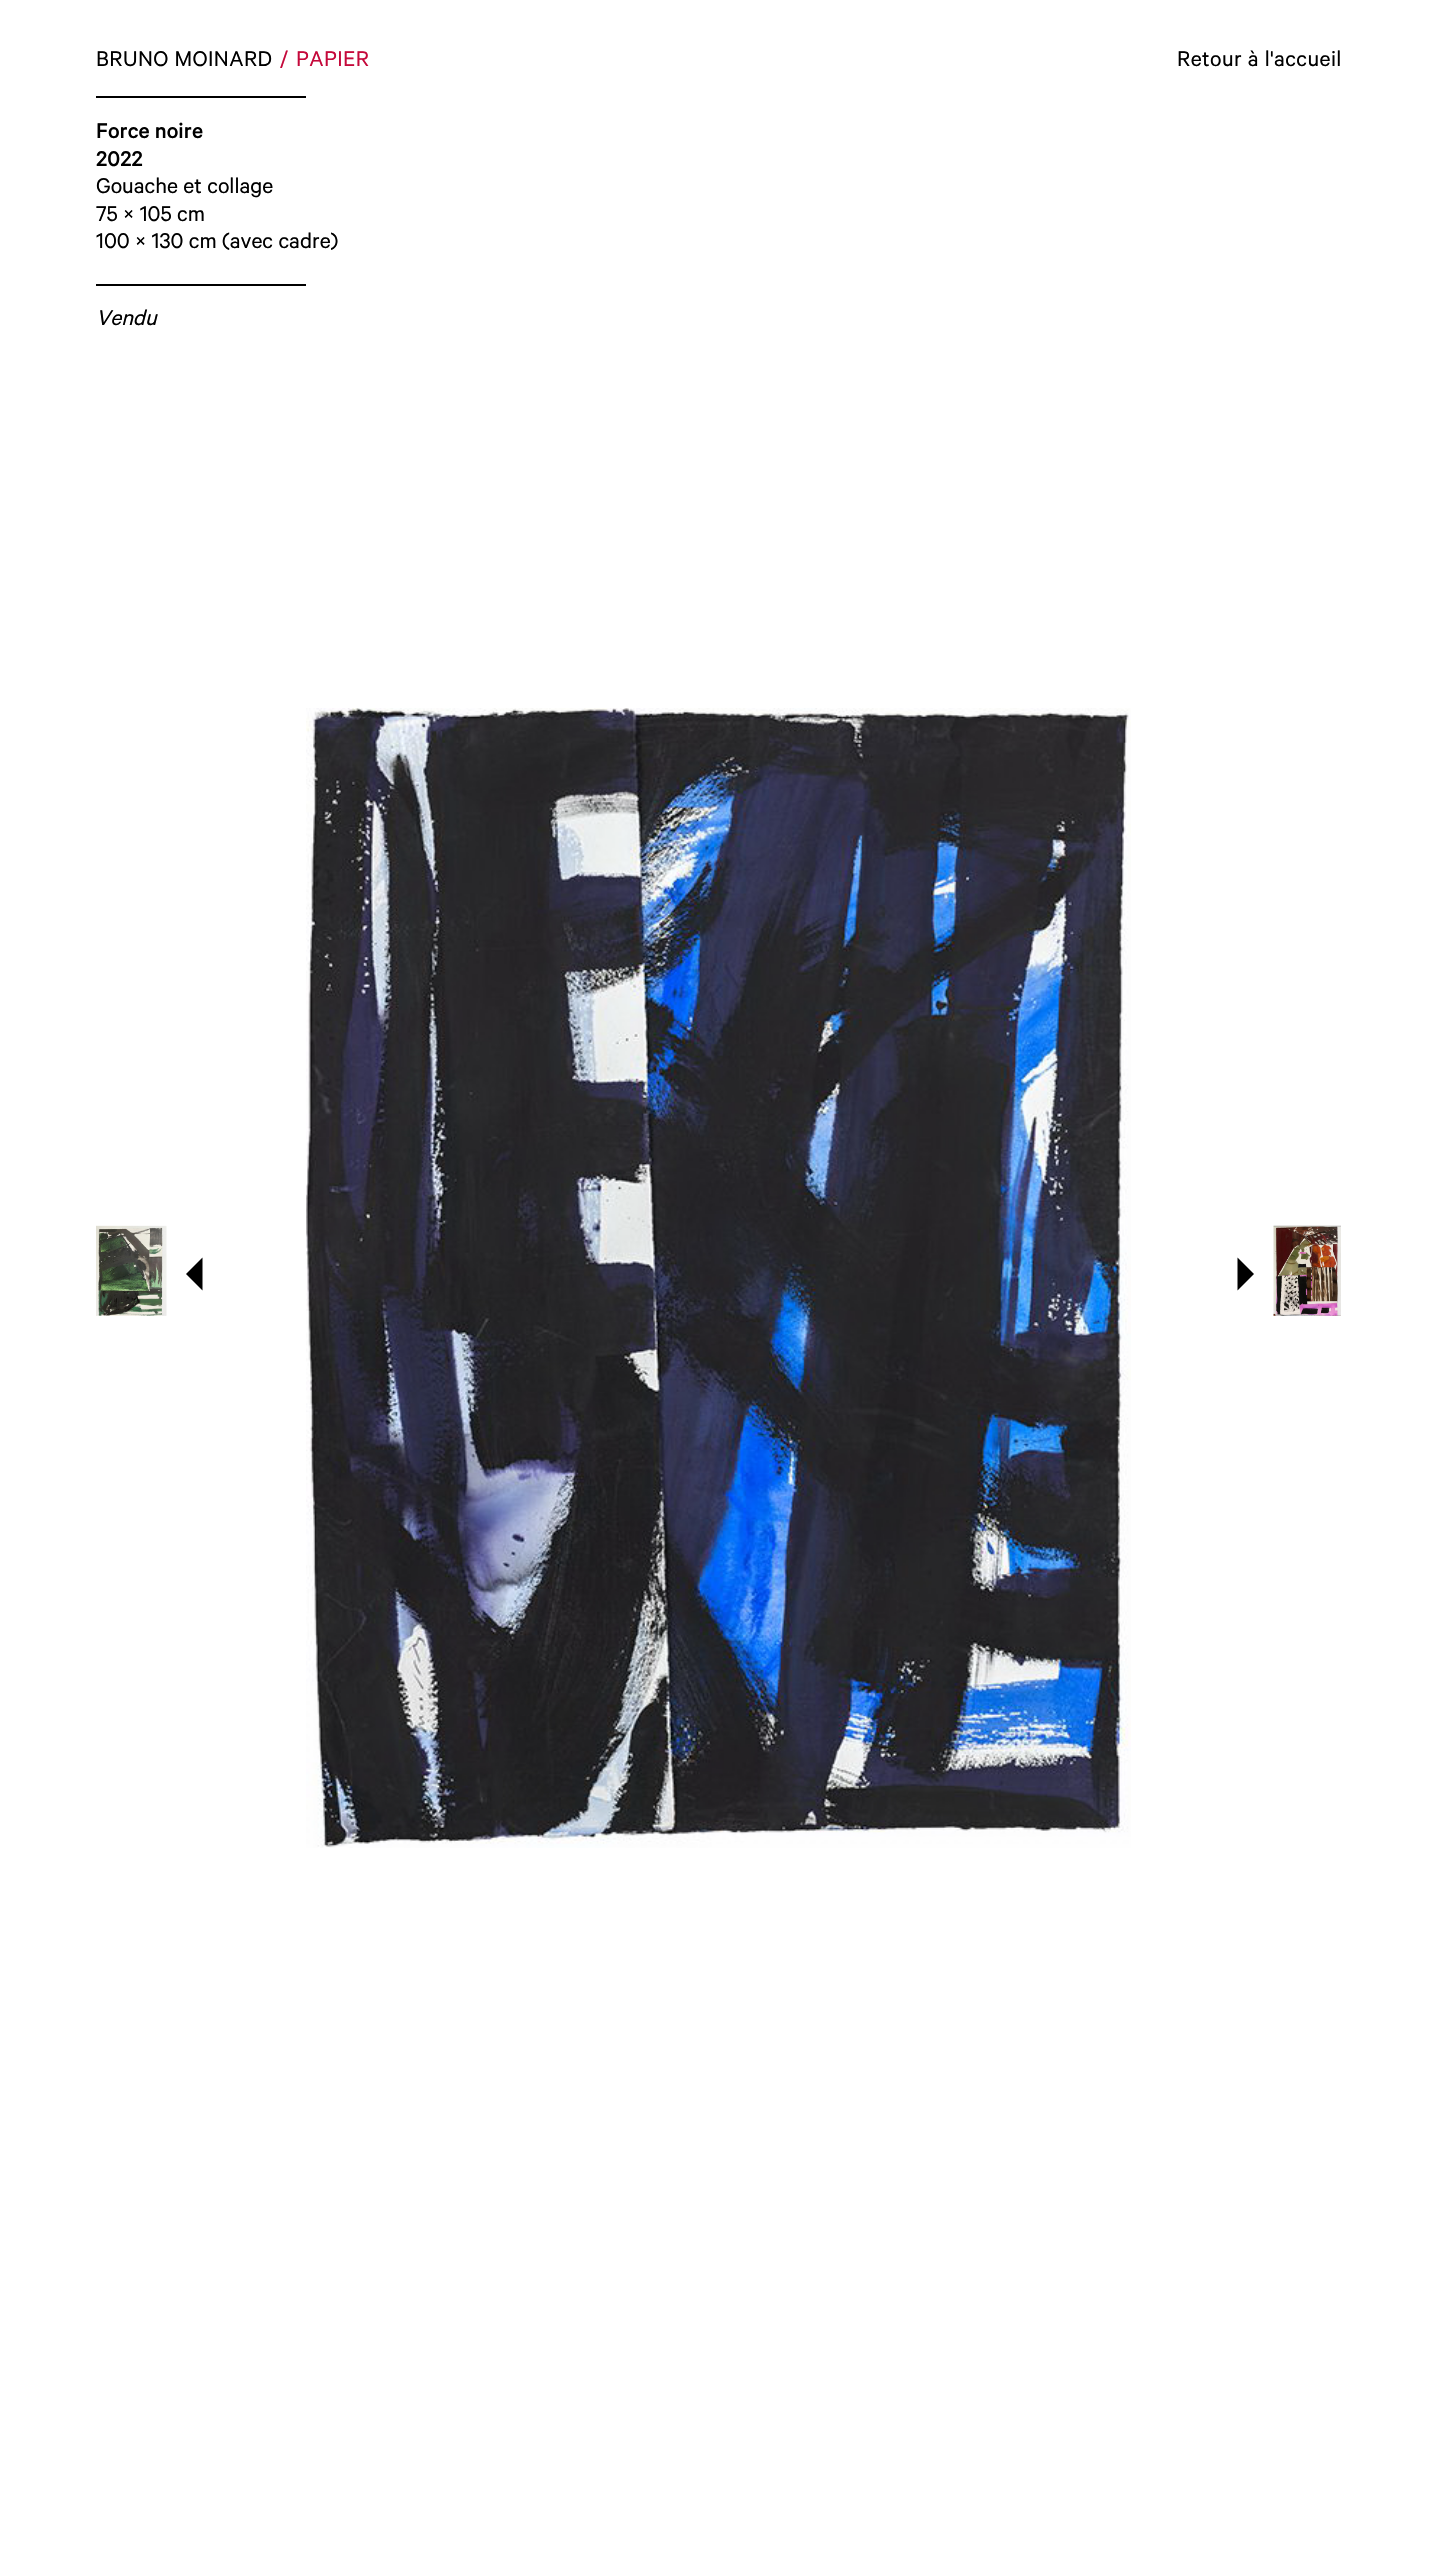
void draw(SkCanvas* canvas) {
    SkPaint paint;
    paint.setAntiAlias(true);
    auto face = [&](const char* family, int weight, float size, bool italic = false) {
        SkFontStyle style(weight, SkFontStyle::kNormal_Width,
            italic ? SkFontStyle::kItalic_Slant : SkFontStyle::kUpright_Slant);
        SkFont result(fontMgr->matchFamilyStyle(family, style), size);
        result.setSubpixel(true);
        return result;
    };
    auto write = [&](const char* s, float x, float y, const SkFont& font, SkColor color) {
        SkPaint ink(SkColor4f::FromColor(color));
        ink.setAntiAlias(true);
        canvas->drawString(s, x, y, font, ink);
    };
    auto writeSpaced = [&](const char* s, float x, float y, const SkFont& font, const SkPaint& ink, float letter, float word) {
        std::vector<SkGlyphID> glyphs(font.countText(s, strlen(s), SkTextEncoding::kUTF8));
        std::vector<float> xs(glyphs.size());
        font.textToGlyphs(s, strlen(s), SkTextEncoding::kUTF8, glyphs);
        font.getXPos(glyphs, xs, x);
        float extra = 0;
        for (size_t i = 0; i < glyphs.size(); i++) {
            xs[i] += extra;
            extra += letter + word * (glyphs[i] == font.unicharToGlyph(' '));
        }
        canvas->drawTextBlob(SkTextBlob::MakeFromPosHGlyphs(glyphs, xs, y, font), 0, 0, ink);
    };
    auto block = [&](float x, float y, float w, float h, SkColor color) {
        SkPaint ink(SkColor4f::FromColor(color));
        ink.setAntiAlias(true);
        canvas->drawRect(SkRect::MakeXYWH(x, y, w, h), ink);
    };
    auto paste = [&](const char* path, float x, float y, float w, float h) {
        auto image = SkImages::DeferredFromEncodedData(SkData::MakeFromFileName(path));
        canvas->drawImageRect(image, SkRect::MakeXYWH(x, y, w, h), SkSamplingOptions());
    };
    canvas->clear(SK_ColorWHITE);
    auto kFont1 = face("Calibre", 400, 24);
    paint.setColor(SK_ColorBLACK);
    writeSpaced("BRUNO MOINARD", 96, 66, kFont1, paint, 0.4f, 0);
    paint.setColor(SkColorSetRGB(197, 9, 59));
    writeSpaced("/", 280, 66, kFont1, paint, 0.4f, 0);
    writeSpaced("PAPIER", 296, 66, kFont1, paint, 0.4f, 0);
    paint.setColor(SK_ColorBLACK);
    writeSpaced("Retour à l'accueil", 1177, 66, kFont1, paint, 0.4f, 0);
    block(96, 96, 210, 2, SK_ColorBLACK);
    auto kFont2 = face("Calibre", 500, 24);
    write("Force noire", 96, 138, kFont2, SK_ColorBLACK);
    write("2022", 96, 166, kFont2, SK_ColorBLACK);
    write("Gouache et collage", 96, 193, kFont1, SK_ColorBLACK);
    write("75 × 105 cm", 96, 221, kFont1, SK_ColorBLACK);
    write("100 × 130 cm (avec cadre)", 96, 248, kFont1, SK_ColorBLACK);
    block(96, 284, 210, 2, SK_ColorBLACK);
    auto kFont3 = face("Calibre", 400, 24, true);
    write("Vendu", 96, 325, kFont3, SK_ColorBLACK);
    paste("pic1.png", 306, 708, 825, 1140);
    paste("pic2.png", 96, 1225, 71, 91);
    canvas->drawPath(SkPathBuilder().moveTo(202.5f, 1257.5f).lineTo(202.5f, 1290.5f).lineTo(186, 1274).close().detach(), paint);
    canvas->drawPath(SkPathBuilder().moveTo(1237.5f, 1290.5f).lineTo(1237.5f, 1257.5f).lineTo(1254, 1274).close().detach(), paint);
    paste("pic3.png", 1273, 1225, 68, 91);
}
